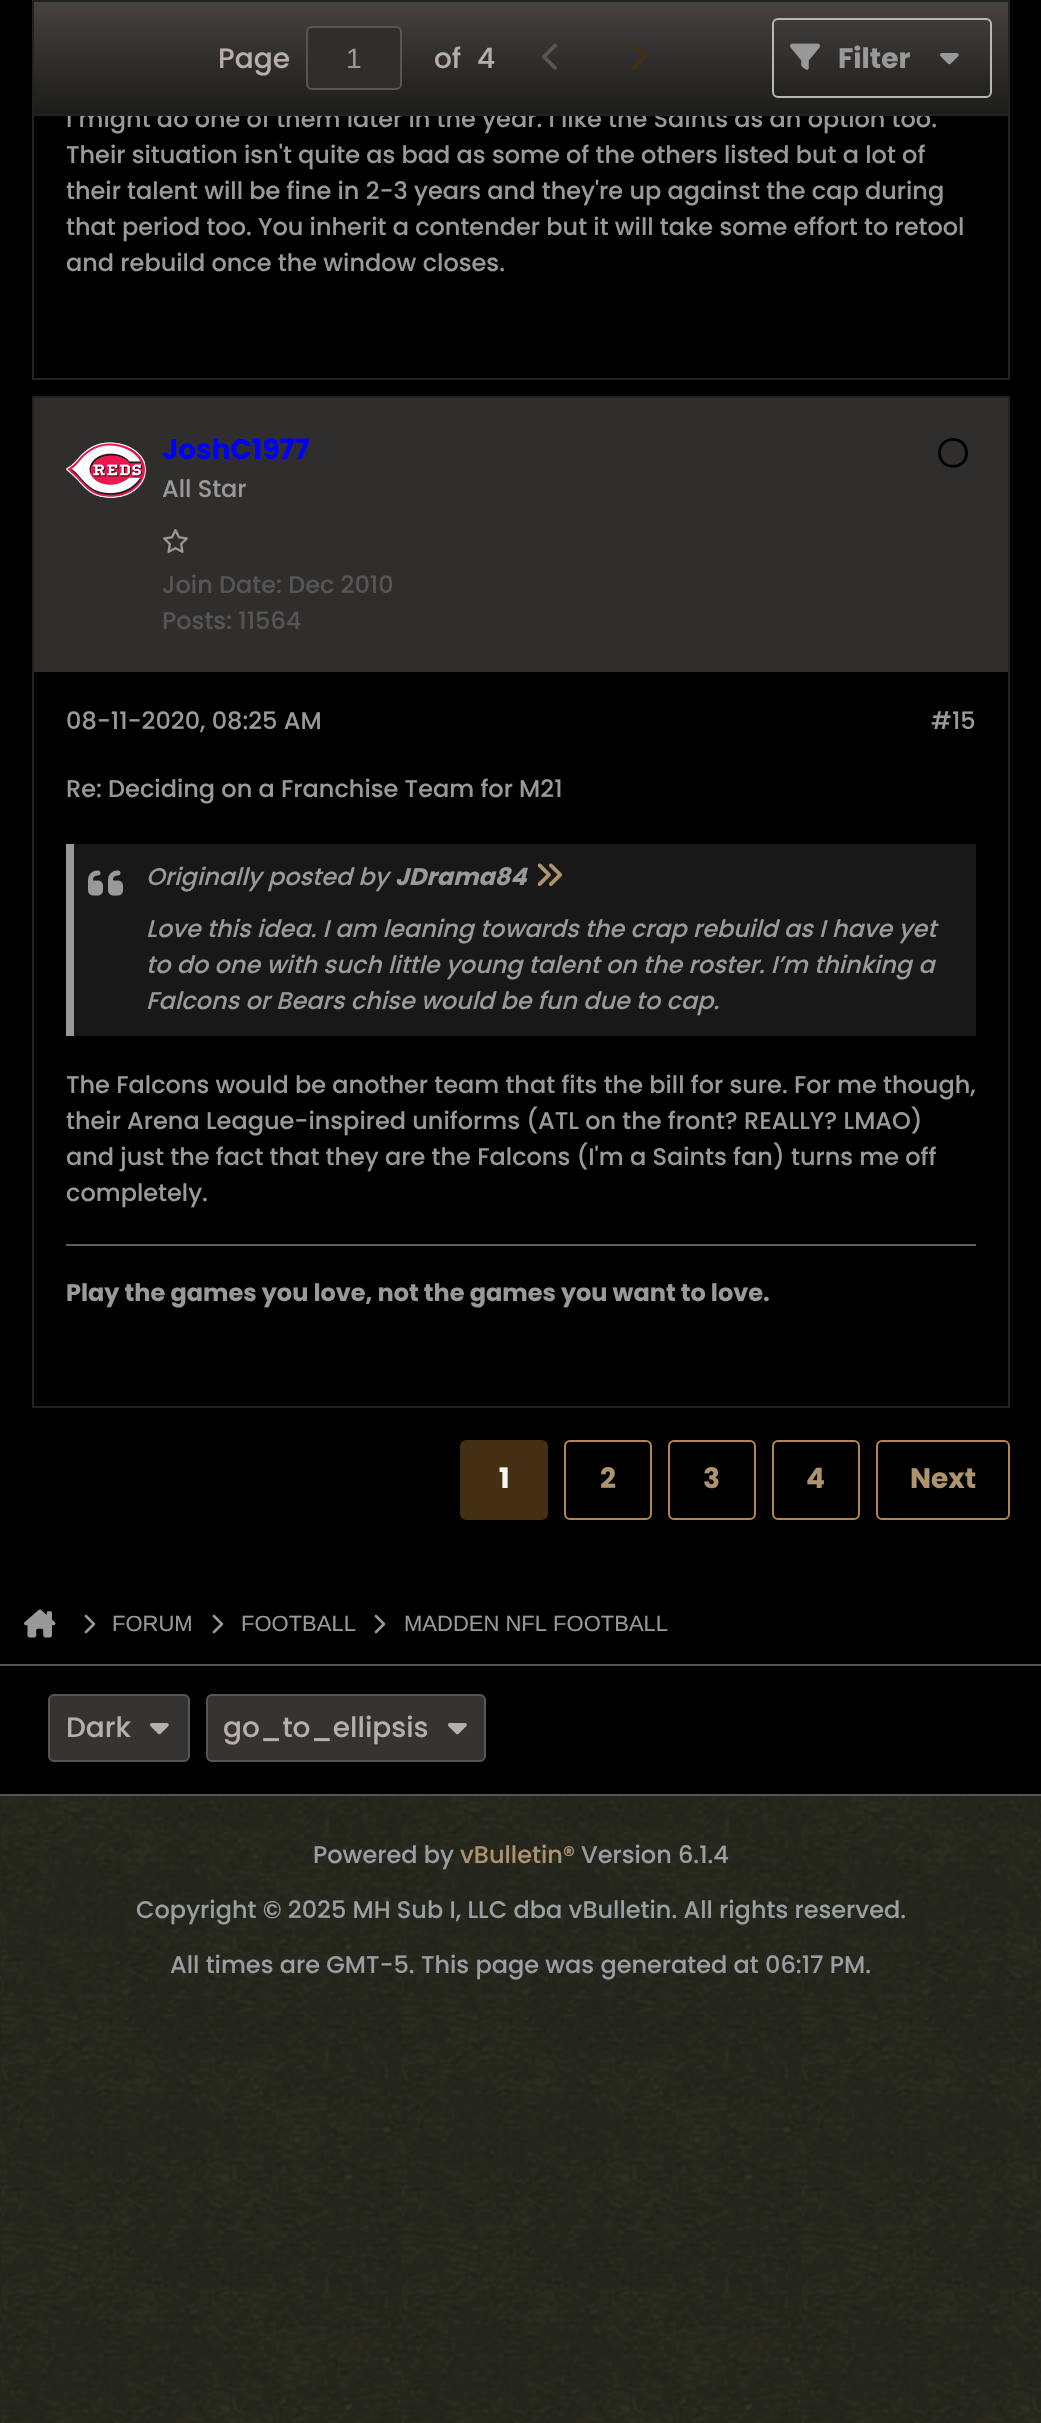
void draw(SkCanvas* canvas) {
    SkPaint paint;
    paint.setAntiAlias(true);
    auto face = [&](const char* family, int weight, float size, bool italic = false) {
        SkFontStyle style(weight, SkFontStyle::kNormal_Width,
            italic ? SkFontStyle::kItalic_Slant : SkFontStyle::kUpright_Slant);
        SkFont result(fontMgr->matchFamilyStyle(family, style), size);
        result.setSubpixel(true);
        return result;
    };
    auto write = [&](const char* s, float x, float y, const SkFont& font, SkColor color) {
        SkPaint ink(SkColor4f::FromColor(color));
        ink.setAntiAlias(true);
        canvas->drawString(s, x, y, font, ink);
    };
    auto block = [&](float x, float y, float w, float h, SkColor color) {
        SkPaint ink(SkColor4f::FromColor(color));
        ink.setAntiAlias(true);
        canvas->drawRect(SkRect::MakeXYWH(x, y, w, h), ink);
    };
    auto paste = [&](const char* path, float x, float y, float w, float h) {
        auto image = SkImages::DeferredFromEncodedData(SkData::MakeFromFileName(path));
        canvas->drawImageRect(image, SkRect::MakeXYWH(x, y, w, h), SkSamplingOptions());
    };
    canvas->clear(SK_ColorWHITE);
    paste("pic1.png", 0, 1796, 1041, 627);
    block(0, 0, 1041, 1794, SK_ColorBLACK);
    paint.setStyle(SkPaint::kStroke_Style);
    paint.setStrokeWidth(2);
    paint.setColor(SkColorSetRGB(34, 34, 34));
    canvas->drawRect(SkRect::MakeXYWH(33, -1, 976, 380), paint);
    auto kFont1 = face("Poppins", 500, 24);
    write("I might do one of them later in the year. I like the Saints as an option too.", 66, 127, kFont1, SkColorSetRGB(154, 153, 153));
    paint.setStyle(SkPaint::kFill_Style);
    {
        const SkColor colors[] = {SkColorSetRGB(69, 66, 64), SkColorSetRGB(28, 28, 27)};
        const float stops[] = {0, 1};
        const SkPoint ends[] = {{521, 2}, {521, 114}};
        paint.setShader(SkGradientShader::MakeLinear(ends, colors, stops, 2, SkTileMode::kClamp));
        paint.setAlpha(255);
    }
    canvas->drawRect(SkRect::MakeXYWH(34, 2, 974, 112), paint);
    paint.setStyle(SkPaint::kStroke_Style);
    paint.setShader(nullptr);
    paint.setColor(SkColorSetRGB(34, 34, 34));
    canvas->drawRect(SkRect::MakeXYWH(33, 1, 976, 114), paint);
    auto kFont2 = face("Poppins", 500, 28);
    write("Page", 218, 68, kFont2, SkColorSetRGB(182, 175, 173));
    paint.setStyle(SkPaint::kFill_Style);
    paint.setColor(SkColorSetRGB(48, 46, 45));
    canvas->drawRoundRect(SkRect::MakeXYWH(307, 27, 94, 62), 5, 5, paint);
    paint.setStyle(SkPaint::kStroke_Style);
    paint.setColor(SkColorSetRGB(87, 85, 85));
    canvas->drawRoundRect(SkRect::MakeXYWH(307, 27, 94, 62), 5, 5, paint);
    auto kFont3 = face("Liberation Sans", 400, 28);
    write("1", 346, 68, kFont3, SkColorSetRGB(154, 153, 153));
    write("of", 434, 68, kFont2, SkColorSetRGB(182, 175, 173));
    write("4", 477, 68, kFont2, SkColorSetRGB(182, 175, 173));
    paste("pic2.png", 542, 43, 15, 27);
    paste("pic3.png", 631, 43, 16, 27);
    paint.setColor(SkColorSetRGB(183, 183, 183));
    canvas->drawRoundRect(SkRect::MakeXYWH(773, 19, 218, 78), 5, 5, paint);
    paste("pic4.png", 790, 43, 30, 27);
    auto kFont4 = face("Poppins", 700, 28);
    write("Filter", 838, 68, kFont4, SkColorSetRGB(154, 153, 153));
    paste("pic5.png", 940, 53, 19, 12);
    write("Their situation isn't quite as bad as some of the others listed but a lot of", 66, 163, kFont1, SkColorSetRGB(154, 153, 153));
    write("their talent will be fine in 2-3 years and they're up against the cap during", 66, 199, kFont1, SkColorSetRGB(154, 153, 153));
    write("that period too. You inherit a contender but it will take some effort to retool", 66, 235, kFont1, SkColorSetRGB(154, 153, 153));
    write("and rebuild once the window closes.", 66, 271, kFont1, SkColorSetRGB(154, 153, 153));
    block(34, 398, 974, 274, SkColorSetRGB(48, 46, 45));
    paint.setColor(SkColorSetRGB(34, 34, 34));
    canvas->drawRect(SkRect::MakeXYWH(33, 397, 976, 1010), paint);
    paste("pic6.png", 66, 442, 80, 56);
    write("JoshC1977", 162, 459, kFont4, SkColorSetRGB(0, 0, 255));
    write("All Star", 162, 497, kFont1, SkColorSetRGB(154, 153, 153));
    paste("pic7.png", 163, 529, 25, 24);
    write("Join Date: Dec 2010", 162, 593, kFont1, SkColorSetRGB(86, 85, 85));
    write("Posts: 11564", 162, 629, kFont1, SkColorSetRGB(86, 85, 85));
    paint.setStyle(SkPaint::kFill_Style);
    paint.setColor(SK_ColorBLACK);
    canvas->drawPath(SkPathBuilder().moveTo(965, 453).cubicTo(965, 436.5f, 941, 436.5f, 941, 453).cubicTo(941, 469, 965, 469, 965, 453).close().moveTo(938, 453).cubicTo(938.5f, 433, 968, 433, 968, 453).cubicTo(968, 472.5f, 938.5f, 472.5f, 938, 453).close().detach(), paint);
    write("08-11-2020, 08:25 AM", 66, 729, kFont1, SkColorSetRGB(154, 153, 153));
    write("#15", 931, 729, kFont1, SkColorSetRGB(154, 153, 153));
    write("Re: Deciding on a Franchise Team for M21", 66, 797, kFont1, SkColorSetRGB(154, 153, 153));
    block(74, 844, 902, 192, SkColorSetRGB(25, 24, 24));
    block(66, 844, 8, 192, SkColorSetRGB(154, 153, 153));
    paste("pic8.png", 88, 870, 35, 26);
    auto kFont5 = face("Poppins", 500, 24, true);
    write("Originally posted by", 146, 885, kFont5, SkColorSetRGB(154, 153, 153));
    auto kFont6 = face("Poppins", 700, 24, true);
    write("JDrama84", 395, 885, kFont6, SkColorSetRGB(154, 153, 153));
    paste("pic9.png", 537, 863, 26, 23);
    write("Love this idea. I am leaning towards the crap rebuild as I have yet", 146, 937, kFont5, SkColorSetRGB(154, 153, 153));
    write("to do one with such little young talent on the roster. I’m thinking a", 146, 973, kFont5, SkColorSetRGB(154, 153, 153));
    write("Falcons or Bears chise would be fun due to cap.", 146, 1009, kFont5, SkColorSetRGB(154, 153, 153));
    write("The Falcons would be another team that fits the bill for sure. For me though,", 66, 1093, kFont1, SkColorSetRGB(154, 153, 153));
    write("their Arena League-inspired uniforms (ATL on the front? REALLY? LMAO)", 66, 1129, kFont1, SkColorSetRGB(154, 153, 153));
    write("and just the fact that they are the Falcons (I'm a Saints fan) turns me off", 66, 1165, kFont1, SkColorSetRGB(154, 153, 153));
    write("completely.", 66, 1201, kFont1, SkColorSetRGB(154, 153, 153));
    block(66, 1244, 910, 2, SkColorSetRGB(99, 94, 92));
    auto kFont7 = face("Poppins", 700, 24);
    write("Play the games you love, not the games you want to love.", 66, 1301, kFont7, SkColorSetRGB(154, 153, 153));
    paint.setColor(SkColorSetRGB(67, 47, 19));
    canvas->drawRoundRect(SkRect::MakeXYWH(461, 1441, 86, 78), 5, 5, paint);
    paint.setStyle(SkPaint::kStroke_Style);
    canvas->drawRoundRect(SkRect::MakeXYWH(461, 1441, 86, 78), 5, 5, paint);
    write("1", 499, 1488, kFont4, SkColorSetRGB(248, 246, 242));
    paint.setColor(SkColorSetRGB(177, 134, 79));
    canvas->drawRoundRect(SkRect::MakeXYWH(565, 1441, 86, 78), 5, 5, paint);
    write("2", 600, 1488, kFont4, SkColorSetRGB(173, 147, 110));
    canvas->drawRoundRect(SkRect::MakeXYWH(669, 1441, 86, 78), 5, 5, paint);
    write("3", 703, 1488, kFont4, SkColorSetRGB(173, 147, 110));
    canvas->drawRoundRect(SkRect::MakeXYWH(773, 1441, 86, 78), 5, 5, paint);
    write("4", 806, 1488, kFont4, SkColorSetRGB(173, 147, 110));
    canvas->drawRoundRect(SkRect::MakeXYWH(877, 1441, 132, 78), 5, 5, paint);
    write("Next", 910, 1488, kFont4, SkColorSetRGB(173, 147, 110));
    paste("pic10.png", 24, 1609, 32, 29);
    paste("pic11.png", 84, 1614, 12, 20);
    auto kFont8 = face("Liberation Sans", 400, 22);
    write("FORUM", 112, 1631, kFont8, SkColorSetRGB(154, 153, 153));
    paste("pic11.png", 212, 1614, 12, 20);
    write("FOOTBALL", 241, 1631, kFont8, SkColorSetRGB(154, 153, 153));
    paste("pic11.png", 374, 1614, 12, 20);
    write("MADDEN NFL FOOTBALL", 404, 1631, kFont8, SkColorSetRGB(154, 153, 153));
    block(0, 1664, 1041, 2, SkColorSetRGB(87, 85, 85));
    block(0, 1794, 1041, 2, SkColorSetRGB(87, 85, 85));
    paint.setStyle(SkPaint::kFill_Style);
    paint.setColor(SkColorSetRGB(54, 52, 51));
    canvas->drawRoundRect(SkRect::MakeXYWH(49, 1695, 140, 66), 5, 5, paint);
    paint.setStyle(SkPaint::kStroke_Style);
    paint.setColor(SkColorSetRGB(87, 85, 85));
    canvas->drawRoundRect(SkRect::MakeXYWH(49, 1695, 140, 66), 5, 5, paint);
    write("Dark", 66, 1737, kFont2, SkColorSetRGB(182, 175, 173));
    paste("pic12.png", 150, 1723, 19, 12);
    paint.setStyle(SkPaint::kFill_Style);
    paint.setColor(SkColorSetRGB(54, 52, 51));
    canvas->drawRoundRect(SkRect::MakeXYWH(207, 1695, 278, 66), 5, 5, paint);
    paint.setStyle(SkPaint::kStroke_Style);
    paint.setColor(SkColorSetRGB(87, 85, 85));
    canvas->drawRoundRect(SkRect::MakeXYWH(207, 1695, 278, 66), 5, 5, paint);
    write("go_to_ellipsis", 223, 1737, kFont2, SkColorSetRGB(182, 175, 173));
    paste("pic12.png", 448, 1723, 19, 12);
    write("Powered by", 313, 1863, kFont1, SkColorSetRGB(152, 158, 161));
    write("vBulletin®", 460, 1863, kFont1, SkColorSetRGB(173, 147, 110));
    write("Version 6.1.4", 581, 1863, kFont1, SkColorSetRGB(152, 158, 161));
    write("Copyright © 2025 MH Sub I, LLC dba vBulletin. All rights reserved.", 136, 1918, kFont1, SkColorSetRGB(152, 158, 161));
    write("All times are GMT-5. This page was generated at 06:17 PM.", 170, 1973, kFont1, SkColorSetRGB(152, 158, 161));
}
